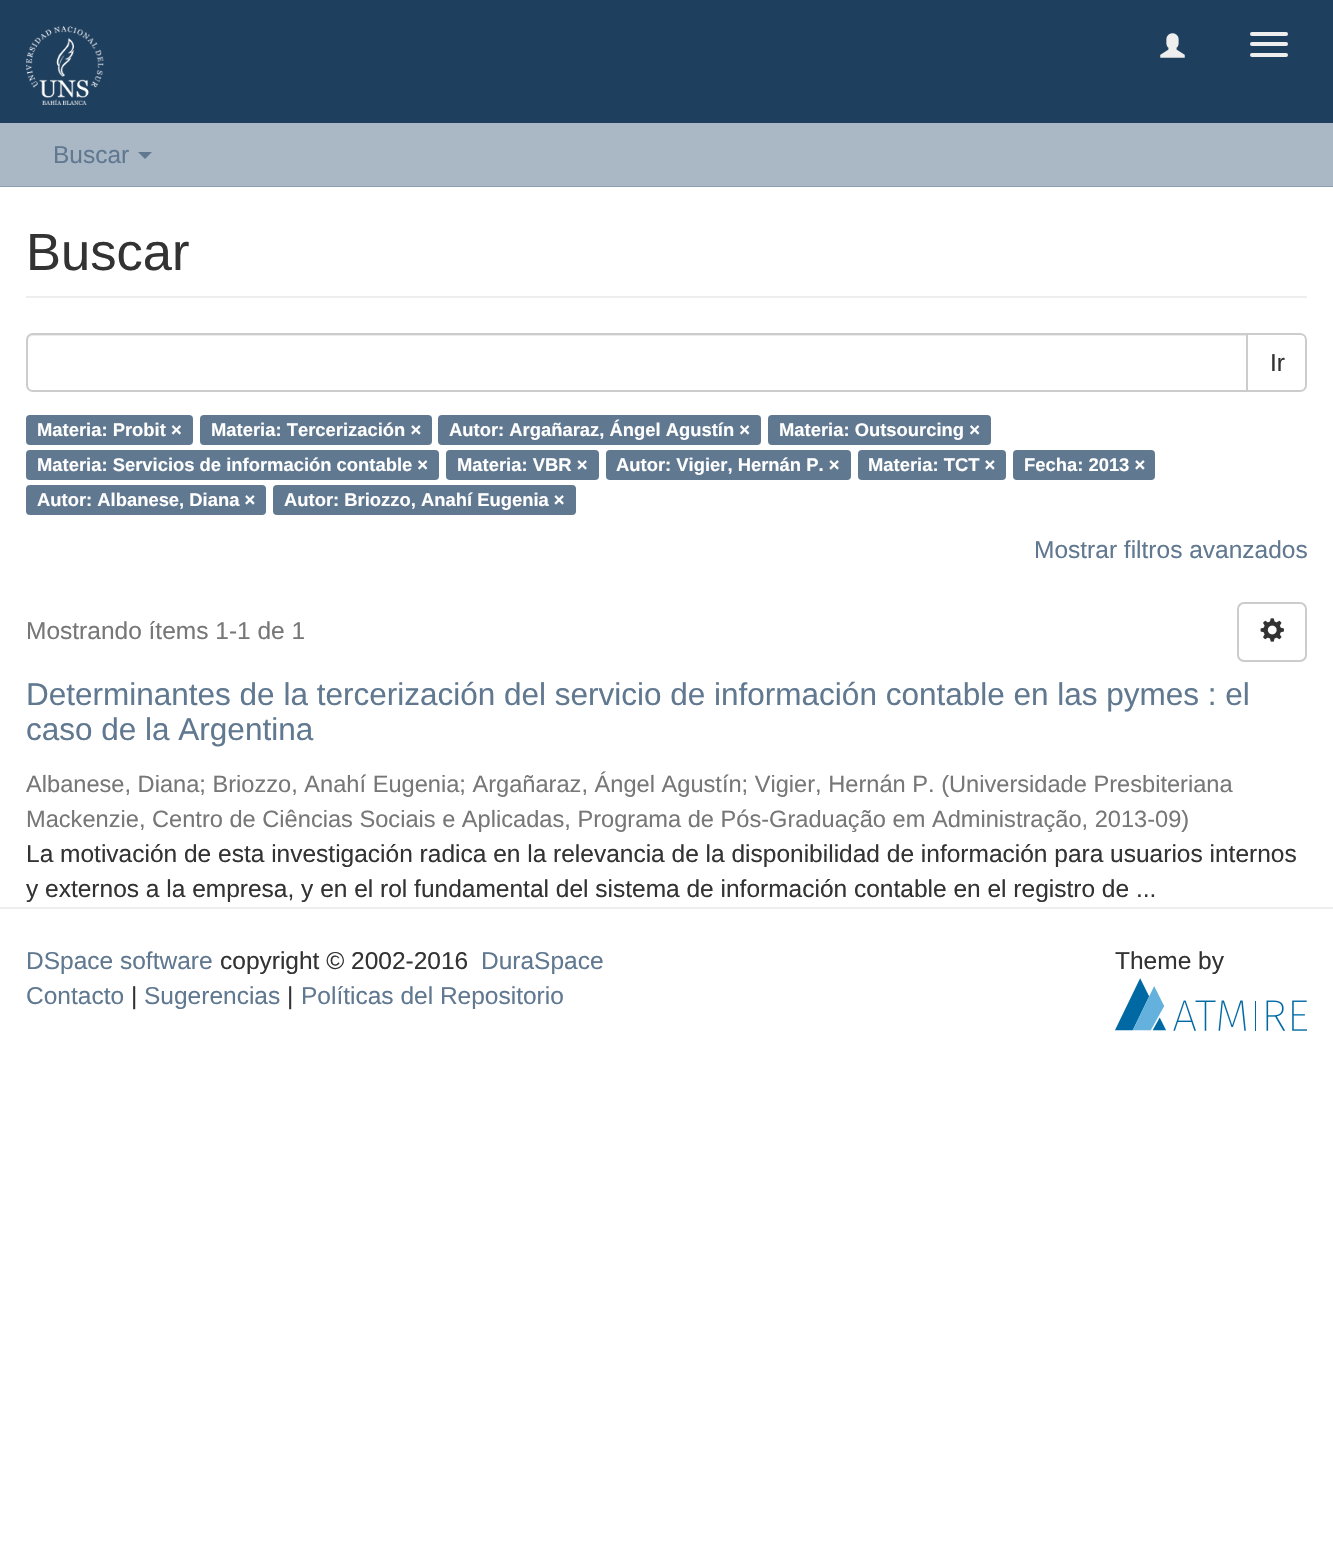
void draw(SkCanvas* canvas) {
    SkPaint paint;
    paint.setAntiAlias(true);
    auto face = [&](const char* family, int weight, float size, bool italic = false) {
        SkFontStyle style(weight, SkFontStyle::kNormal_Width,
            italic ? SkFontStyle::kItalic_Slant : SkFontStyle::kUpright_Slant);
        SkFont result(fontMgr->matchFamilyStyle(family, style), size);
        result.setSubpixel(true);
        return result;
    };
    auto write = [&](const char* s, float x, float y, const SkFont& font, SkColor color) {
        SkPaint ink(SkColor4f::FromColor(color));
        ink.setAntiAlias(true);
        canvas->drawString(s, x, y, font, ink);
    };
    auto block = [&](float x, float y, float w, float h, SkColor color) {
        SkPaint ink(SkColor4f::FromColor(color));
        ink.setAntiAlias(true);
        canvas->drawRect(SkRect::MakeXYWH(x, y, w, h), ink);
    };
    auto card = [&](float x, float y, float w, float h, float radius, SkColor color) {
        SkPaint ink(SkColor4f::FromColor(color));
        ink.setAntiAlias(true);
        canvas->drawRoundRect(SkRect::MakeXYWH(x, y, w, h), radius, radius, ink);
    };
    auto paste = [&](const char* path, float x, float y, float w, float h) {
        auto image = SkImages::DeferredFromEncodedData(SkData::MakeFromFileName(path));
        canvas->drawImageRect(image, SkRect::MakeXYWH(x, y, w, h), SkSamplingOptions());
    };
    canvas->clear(SK_ColorWHITE);
    block(0, 0, 1333, 123, SkColorSetRGB(31, 63, 94));
    paste("pic1.png", 26, 26, 78, 79);
    paste("pic2.png", 1160, 33, 25, 25);
    card(1250, 32, 38, 4, 2, SkColorSetRGB(238, 238, 238));
    card(1250, 42, 38, 4, 2, SkColorSetRGB(238, 238, 238));
    card(1250, 53, 38, 4, 2, SkColorSetRGB(238, 238, 238));
    block(0, 123, 1333, 63, SkColorSetRGB(170, 184, 198));
    block(0, 186, 1333, 1, SkColorSetRGB(139, 158, 178));
    auto kFont1 = face("Liberation Sans", 400, 24.5f);
    write("Buscar", 53, 163, kFont1, SkColorSetRGB(96, 120, 144));
    paint.setColor(SkColorSetRGB(96, 120, 144));
    canvas->drawPath(SkPathBuilder().moveTo(138, 152).lineTo(152, 152).lineTo(145, 159).close().detach(), paint);
    block(26, 296, 1281, 2, SkColorSetRGB(238, 238, 238));
    auto kFont2 = face("Liberation Sans", 400, 52.5f);
    write("Buscar", 26, 270, kFont2, SkColorSetRGB(51, 51, 51));
    paint.setStyle(SkPaint::kStroke_Style);
    paint.setStrokeWidth(2);
    paint.setColor(SkColorSetRGB(204, 204, 204));
    canvas->drawPath(SkPathBuilder().moveTo(1247, 334).lineTo(1300, 334).cubicTo(1303.5f, 334, 1306, 336.5f, 1306, 340).lineTo(1306, 385).cubicTo(1306, 388.5f, 1303.5f, 391, 1300, 391).lineTo(1247, 391).close().detach(), paint);
    paint.setStyle(SkPaint::kFill_Style);
    paint.setColor(SK_ColorWHITE);
    canvas->drawPath(SkPathBuilder().moveTo(33, 333).lineTo(1248, 333).lineTo(1248, 392).lineTo(33, 392).cubicTo(29, 392, 26, 389, 26, 385).lineTo(26, 340).cubicTo(26, 336, 29, 333, 33, 333).close().detach(), paint);
    paint.setColor(SkColorSetRGB(236, 236, 236));
    canvas->drawPath(SkPathBuilder().moveTo(33, 336).lineTo(1246, 336).lineTo(1246, 334).lineTo(33, 334).cubicTo(30, 334, 28, 336, 28, 339).lineTo(28, 341).cubicTo(28, 338, 30, 336, 33, 336).close().detach(), paint);
    paint.setStyle(SkPaint::kStroke_Style);
    paint.setColor(SkColorSetRGB(204, 204, 204));
    canvas->drawPath(SkPathBuilder().moveTo(33, 334).lineTo(1247, 334).lineTo(1247, 391).lineTo(33, 391).cubicTo(29.5f, 391, 27, 388.5f, 27, 385).lineTo(27, 340).cubicTo(27, 336.5f, 29.5f, 334, 33, 334).close().detach(), paint);
    write("Ir", 1270, 371, kFont1, SkColorSetRGB(51, 51, 51));
    card(26, 415, 167, 30, 4, SkColorSetRGB(96, 120, 144));
    auto kFont3 = face("Liberation Sans", 700, 18.4f);
    write("Materia: Probit ×", 37, 436, kFont3, SK_ColorWHITE);
    card(200, 415, 232, 30, 4, SkColorSetRGB(96, 120, 144));
    write("Materia: Tercerización ×", 211, 436, kFont3, SK_ColorWHITE);
    card(438, 415, 323, 30, 4, SkColorSetRGB(96, 120, 144));
    write("Autor: Argañaraz, Ángel Agustín ×", 449, 436, kFont3, SK_ColorWHITE);
    card(768, 415, 223, 30, 4, SkColorSetRGB(96, 120, 144));
    write("Materia: Outsourcing ×", 779, 436, kFont3, SK_ColorWHITE);
    card(26, 450, 413, 30, 4, SkColorSetRGB(96, 120, 144));
    write("Materia: Servicios de información contable ×", 37, 471, kFont3, SK_ColorWHITE);
    card(446, 450, 153, 30, 4, SkColorSetRGB(96, 120, 144));
    write("Materia: VBR ×", 457, 471, kFont3, SK_ColorWHITE);
    card(606, 450, 245, 30, 4, SkColorSetRGB(96, 120, 144));
    write("Autor: Vigier, Hernán P. ×", 616, 471, kFont3, SK_ColorWHITE);
    card(858, 450, 148, 30, 4, SkColorSetRGB(96, 120, 144));
    write("Materia: TCT ×", 868, 471, kFont3, SK_ColorWHITE);
    card(1013, 450, 142, 30, 4, SkColorSetRGB(96, 120, 144));
    write("Fecha: 2013 ×", 1024, 471, kFont3, SK_ColorWHITE);
    card(26, 485, 240, 30, 4, SkColorSetRGB(96, 120, 144));
    write("Autor: Albanese, Diana ×", 37, 506, kFont3, SK_ColorWHITE);
    card(273, 485, 303, 30, 4, SkColorSetRGB(96, 120, 144));
    write("Autor: Briozzo, Anahí Eugenia ×", 284, 506, kFont3, SK_ColorWHITE);
    write("Mostrar filtros avanzados", 1034, 558, kFont1, SkColorSetRGB(96, 120, 144));
    write("Mostrando ítems 1-1 de 1", 26, 639, kFont1, SkColorSetRGB(119, 119, 119));
    canvas->drawRoundRect(SkRect::MakeXYWH(1238, 603, 68, 58), 6, 6, paint);
    paste("pic3.png", 1260, 618, 24, 24);
    auto kFont4 = face("Liberation Sans", 400, 31.5f);
    write("Determinantes de la tercerización del servicio de información contable en las pymes : el", 26, 705, kFont4, SkColorSetRGB(96, 120, 144));
    write("caso de la Argentina", 26, 740, kFont4, SkColorSetRGB(96, 120, 144));
    auto kFont5 = face("Liberation Sans", 400, 23.62f);
    write("Albanese, Diana; Briozzo, Anahí Eugenia; Argañaraz, Ángel Agustín; Vigier, Hernán P. (Universidade Presbiteriana", 26, 792, kFont5, SkColorSetRGB(119, 119, 119));
    write("Mackenzie, Centro de Ciências Sociais e Aplicadas, Programa de Pós-Graduação em Administração, 2013-09)", 26, 827, kFont5, SkColorSetRGB(119, 119, 119));
    write("La motivación de esta investigación radica en la relevancia de la disponibilidad de información para usuarios internos", 26, 862, kFont1, SkColorSetRGB(51, 51, 51));
    write("y externos a la empresa, y en el rol fundamental del sistema de información contable en el registro de ...", 26, 897, kFont1, SkColorSetRGB(51, 51, 51));
    block(0, 907, 1333, 2, SkColorSetRGB(238, 238, 238));
    write("DSpace software", 26, 969, kFont1, SkColorSetRGB(96, 120, 144));
    write("copyright © 2002-2016", 220, 969, kFont1, SkColorSetRGB(51, 51, 51));
    write("DuraSpace", 481, 969, kFont1, SkColorSetRGB(96, 120, 144));
    write("Contacto", 26, 1004, kFont1, SkColorSetRGB(96, 120, 144));
    write("|", 131, 1004, kFont1, SkColorSetRGB(51, 51, 51));
    write("Sugerencias", 144, 1004, kFont1, SkColorSetRGB(96, 120, 144));
    write("|", 287, 1004, kFont1, SkColorSetRGB(51, 51, 51));
    write("Políticas del Repositorio", 301, 1004, kFont1, SkColorSetRGB(96, 120, 144));
    write("Theme by", 1115, 969, kFont1, SkColorSetRGB(51, 51, 51));
    paste("pic4.png", 1115, 978, 192, 53);
}
